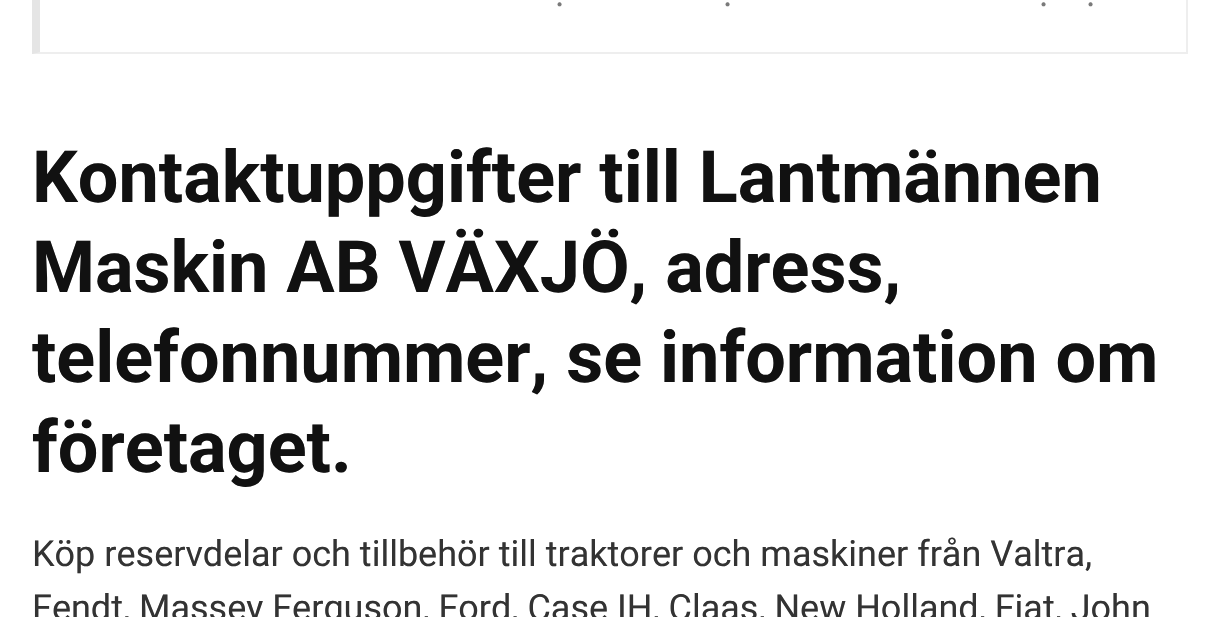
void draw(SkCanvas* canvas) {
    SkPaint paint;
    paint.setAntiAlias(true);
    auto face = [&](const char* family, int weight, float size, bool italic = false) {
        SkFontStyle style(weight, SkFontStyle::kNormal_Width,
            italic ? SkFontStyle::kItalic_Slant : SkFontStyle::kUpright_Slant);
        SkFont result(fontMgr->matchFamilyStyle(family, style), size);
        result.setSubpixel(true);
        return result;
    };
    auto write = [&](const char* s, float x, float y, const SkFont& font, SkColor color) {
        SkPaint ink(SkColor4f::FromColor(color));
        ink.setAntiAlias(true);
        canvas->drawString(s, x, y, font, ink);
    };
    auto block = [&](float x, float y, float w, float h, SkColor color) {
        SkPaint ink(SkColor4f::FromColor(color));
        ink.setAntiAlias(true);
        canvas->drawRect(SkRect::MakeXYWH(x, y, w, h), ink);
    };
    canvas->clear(SK_ColorWHITE);
    block(1186, 0, 2, 54, SkColorSetRGB(238, 238, 238));
    paint.setColor(SkColorSetRGB(238, 238, 238));
    canvas->drawPath(SkPathBuilder().moveTo(1188, 54).lineTo(32, 54).lineTo(40, 52).lineTo(1186, 52).close().detach(), paint);
    paint.setColor(SkColorSetARGB(26, 0, 0, 0));
    canvas->drawPath(SkPathBuilder().moveTo(32, 54).lineTo(32, -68).lineTo(40, -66).lineTo(40, 52).close().detach(), paint);
    auto kFont1 = face("Roboto", 400, 36);
    write(".", 555, 6, kFont1, SkColorSetRGB(122, 122, 122));
    write(".", 723, 6, kFont1, SkColorSetRGB(122, 122, 122));
    write(".", 1039, 6, kFont1, SkColorSetRGB(122, 122, 122));
    write(".", 1086, 6, kFont1, SkColorSetRGB(122, 122, 122));
    auto kFont2 = face("Roboto", 700, 72);
    write("Kontaktuppgifter till Lantmännen", 32, 202, kFont2, SkColorSetRGB(17, 17, 17));
    write("Maskin AB VÄXJÖ, adress,", 32, 292, kFont2, SkColorSetRGB(17, 17, 17));
    write("telefonnummer, se information om", 32, 382, kFont2, SkColorSetRGB(17, 17, 17));
    write("företaget.", 32, 472, kFont2, SkColorSetRGB(17, 17, 17));
    write("Köp reservdelar och tillbehör till traktorer och maskiner från Valtra,", 32, 566, kFont1, SkColorSetRGB(51, 51, 51));
    write("Fendt, Massey Ferguson, Ford, Case IH, Claas, New Holland, Fiat, John", 32, 620, kFont1, SkColorSetRGB(51, 51, 51));
}
